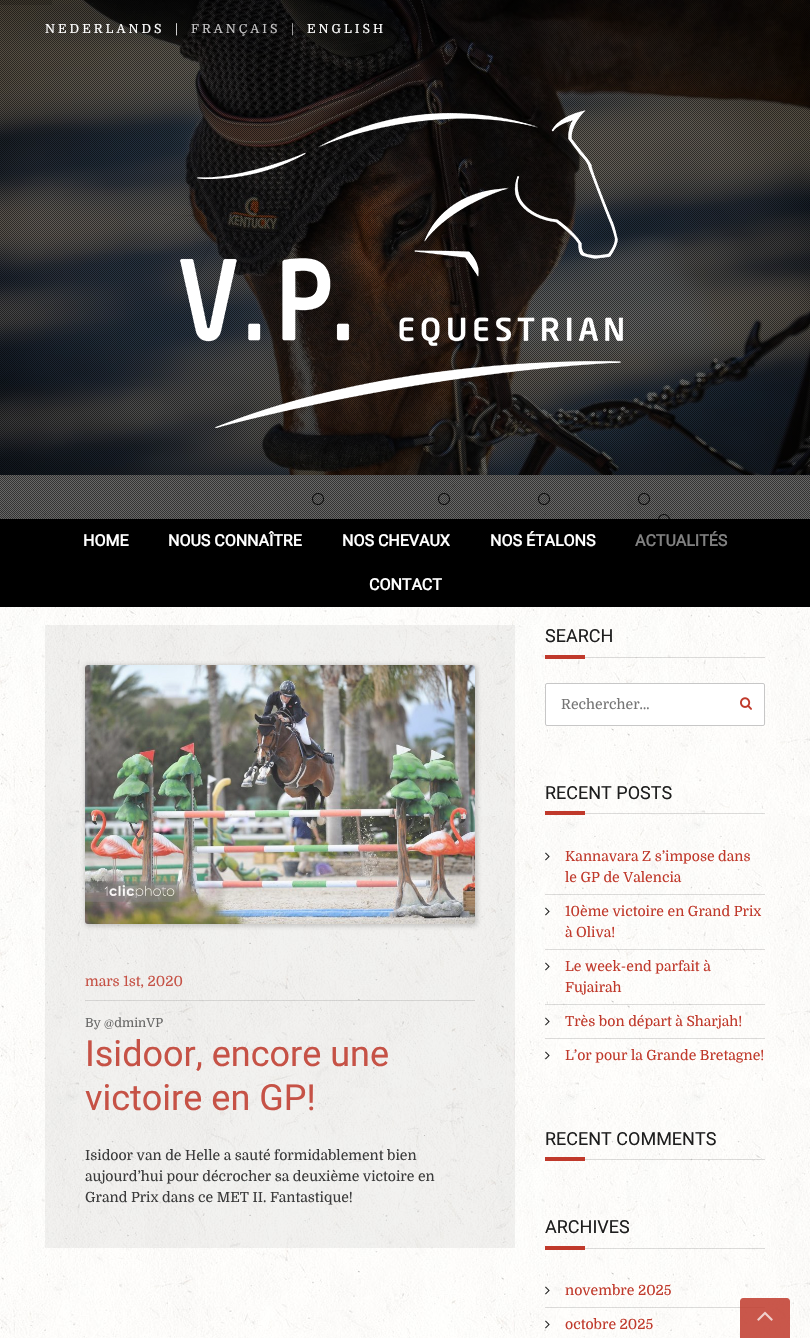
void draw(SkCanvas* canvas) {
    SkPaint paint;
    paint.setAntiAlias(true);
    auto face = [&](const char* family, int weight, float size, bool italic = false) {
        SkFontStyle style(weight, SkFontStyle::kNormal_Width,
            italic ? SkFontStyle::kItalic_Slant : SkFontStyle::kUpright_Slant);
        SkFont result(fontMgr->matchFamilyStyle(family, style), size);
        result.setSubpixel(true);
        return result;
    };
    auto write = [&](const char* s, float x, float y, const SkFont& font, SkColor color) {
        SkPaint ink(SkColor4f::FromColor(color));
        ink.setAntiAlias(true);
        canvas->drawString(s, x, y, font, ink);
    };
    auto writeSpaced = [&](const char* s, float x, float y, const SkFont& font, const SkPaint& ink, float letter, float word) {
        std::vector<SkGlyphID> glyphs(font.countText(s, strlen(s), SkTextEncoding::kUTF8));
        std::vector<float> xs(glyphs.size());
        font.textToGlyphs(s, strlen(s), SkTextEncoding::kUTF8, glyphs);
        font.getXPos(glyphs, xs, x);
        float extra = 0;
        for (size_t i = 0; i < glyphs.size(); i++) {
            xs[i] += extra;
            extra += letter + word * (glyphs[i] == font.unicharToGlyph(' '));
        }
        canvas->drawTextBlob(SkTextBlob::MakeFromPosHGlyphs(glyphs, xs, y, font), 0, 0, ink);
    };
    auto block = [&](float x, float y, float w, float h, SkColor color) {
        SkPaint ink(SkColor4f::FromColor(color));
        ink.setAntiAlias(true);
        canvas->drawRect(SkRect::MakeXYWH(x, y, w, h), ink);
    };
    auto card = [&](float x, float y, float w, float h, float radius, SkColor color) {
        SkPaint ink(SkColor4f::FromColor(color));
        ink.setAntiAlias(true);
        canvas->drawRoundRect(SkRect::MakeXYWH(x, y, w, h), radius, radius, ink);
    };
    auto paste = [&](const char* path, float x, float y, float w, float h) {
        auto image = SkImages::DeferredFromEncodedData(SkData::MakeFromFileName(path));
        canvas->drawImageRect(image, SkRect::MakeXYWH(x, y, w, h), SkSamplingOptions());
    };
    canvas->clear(SK_ColorWHITE);
    paste("pic1.png", 0, 475, 810, 863);
    paste("pic2.png", 0, 0, 810, 475);
    block(0, 0, 52, 5, SkColorSetARGB(38, 0, 0, 0));
    block(0, 475, 810, 44, SkColorSetARGB(26, 30, 30, 30));
    paste("pic5.png", 312, 493, 12, 12);
    paste("pic6.png", 438, 493, 12, 12);
    paste("pic7.png", 538, 493, 12, 12);
    paste("pic8.png", 638, 493, 12, 12);
    paste("pic9.png", 658, 514, 12, 5);
    block(0, 0, 810, 519, SkColorSetARGB(140, 0, 0, 0));
    paste("pic3.png", 0, 0, 810, 519);
    auto kFont1 = face("Domine", 400, 12.5f);
    paint.setColor(SK_ColorWHITE);
    writeSpaced("NEDERLANDS", 45, 33, kFont1, paint, 3, 0);
    writeSpaced("|", 175, 33, kFont1, paint, 3, 0);
    paint.setColor(SkColorSetRGB(195, 194, 195));
    writeSpaced("FRANÇAIS", 191, 33, kFont1, paint, 3, 0);
    writeSpaced("|", 291, 33, kFont1, paint, 3, 0);
    paint.setColor(SK_ColorWHITE);
    writeSpaced("ENGLISH", 307, 33, kFont1, paint, 3, 0);
    paste("pic4.png", 180, 110, 443, 318);
    block(0, 519, 810, 88, SK_ColorBLACK);
    auto kFont2 = face("Roboto", 700, 16);
    write("HOME", 83, 546, kFont2, SK_ColorWHITE);
    write("NOUS CONNAÎTRE", 168, 546, kFont2, SK_ColorWHITE);
    write("NOS CHEVAUX", 342, 546, kFont2, SK_ColorWHITE);
    write("NOS ÉTALONS", 490, 546, kFont2, SK_ColorWHITE);
    write("ACTUALITÉS", 635, 546, kFont2, SkColorSetRGB(128, 128, 128));
    write("CONTACT", 369, 590, kFont2, SK_ColorWHITE);
    block(45, 625, 470, 623, SkColorSetARGB(15, 30, 30, 30));
    canvas->save();
    canvas->clipPath(SkPathBuilder(SkPathFillType::kEvenOdd).moveTo(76, 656).lineTo(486, 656).lineTo(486, 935).lineTo(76, 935).close().moveTo(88, 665).lineTo(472, 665).cubicTo(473.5f, 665, 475, 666.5f, 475, 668).lineTo(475, 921).cubicTo(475, 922.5f, 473.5f, 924, 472, 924).lineTo(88, 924).cubicTo(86.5f, 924, 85, 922.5f, 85, 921).lineTo(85, 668).cubicTo(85, 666.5f, 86.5f, 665, 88, 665).close().detach(), true);
    paint.setColor(SkColorSetARGB(56, 30, 30, 30));
    paint.setMaskFilter(SkMaskFilter::MakeBlur(kNormal_SkBlurStyle, 2.5f));
    canvas->drawRoundRect(SkRect::MakeXYWH(85, 665, 392, 261), 4, 4, paint);
    paint.setMaskFilter(nullptr);
    canvas->restore();
    paste("pic10.png", 85, 665, 390, 259);
    auto kFont3 = face("Domine", 400, 14);
    write("mars 1st, 2020", 85, 986, kFont3, SkColorSetRGB(198, 82, 70));
    block(85, 1000, 390, 1, SkColorSetARGB(33, 30, 30, 30));
    write("By @dminVP", 85, 1027, kFont1, SkColorSetRGB(104, 104, 103));
    auto kFont4 = face("Roboto", 400, 36);
    write("Isidoor, encore une", 85, 1066, kFont4, SkColorSetRGB(198, 82, 70));
    write("victoire en GP!", 85, 1110, kFont4, SkColorSetRGB(198, 82, 70));
    write("Isidoor van de Helle a sauté formidablement bien", 85, 1160, kFont3, SkColorSetRGB(59, 59, 59));
    write("aujourd’hui pour décrocher sa deuxième victoire en", 85, 1181, kFont3, SkColorSetRGB(59, 59, 59));
    write("Grand Prix dans ce MET II. Fantastique!", 85, 1202, kFont3, SkColorSetRGB(59, 59, 59));
    block(585, 657, 180, 1, SkColorSetARGB(38, 30, 30, 30));
    auto kFont5 = face("Roboto", 400, 18);
    write("SEARCH", 545, 642, kFont5, SkColorSetRGB(30, 30, 30));
    block(545, 655, 40, 4, SkColorSetRGB(192, 57, 43));
    card(545, 683, 220, 43, 2, SK_ColorWHITE);
    paste("pic11.png", 740, 697, 12, 13);
    paint.setStyle(SkPaint::kStroke_Style);
    paint.setStrokeWidth(1);
    paint.setColor(SkColorSetRGB(199, 199, 199));
    canvas->drawRoundRect(SkRect::MakeXYWH(545.5f, 683.5f, 219, 42), 1.5f, 1.5f, paint);
    write("Rechercher…", 561, 709, kFont3, SkColorSetRGB(117, 117, 117));
    block(585, 813, 180, 1, SkColorSetARGB(38, 30, 30, 30));
    write("RECENT POSTS", 545, 799, kFont5, SkColorSetRGB(30, 30, 30));
    block(545, 811, 40, 4, SkColorSetRGB(192, 57, 43));
    block(545, 894, 220, 1, SkColorSetARGB(38, 30, 30, 30));
    paste("pic12.png", 545, 852, 5, 9);
    write("Kannavara Z s’impose dans", 565, 861, kFont3, SkColorSetRGB(192, 57, 43));
    write("le GP de Valencia", 565, 882, kFont3, SkColorSetRGB(192, 57, 43));
    block(545, 949, 220, 1, SkColorSetARGB(38, 30, 30, 30));
    paste("pic13.png", 545, 907, 5, 9);
    write("10ème victoire en Grand Prix", 565, 916, kFont3, SkColorSetRGB(192, 57, 43));
    write("à Oliva!", 565, 937, kFont3, SkColorSetRGB(192, 57, 43));
    block(545, 1004, 220, 1, SkColorSetARGB(38, 30, 30, 30));
    paste("pic14.png", 545, 962, 5, 9);
    write("Le week-end parfait à", 565, 971, kFont3, SkColorSetRGB(192, 57, 43));
    write("Fujairah", 565, 992, kFont3, SkColorSetRGB(192, 57, 43));
    block(545, 1038, 220, 1, SkColorSetARGB(38, 30, 30, 30));
    paste("pic15.png", 545, 1017, 5, 9);
    write("Très bon départ à Sharjah!", 565, 1026, kFont3, SkColorSetRGB(192, 57, 43));
    paste("pic16.png", 545, 1051, 5, 9);
    write("L’or pour la Grande Bretagne!", 565, 1060, kFont3, SkColorSetRGB(192, 57, 43));
    block(585, 1159, 180, 1, SkColorSetARGB(38, 30, 30, 30));
    write("RECENT COMMENTS", 545, 1145, kFont5, SkColorSetRGB(30, 30, 30));
    block(545, 1157, 40, 4, SkColorSetRGB(192, 57, 43));
    block(585, 1248, 180, 1, SkColorSetARGB(38, 30, 30, 30));
    write("ARCHIVES", 545, 1233, kFont5, SkColorSetRGB(30, 30, 30));
    block(545, 1246, 40, 4, SkColorSetRGB(192, 57, 43));
    block(545, 1307, 220, 1, SkColorSetARGB(38, 30, 30, 30));
    paste("pic17.png", 545, 1286, 5, 9);
    write("novembre 2025", 565, 1295, kFont3, SkColorSetRGB(192, 57, 43));
    paste("pic18.png", 545, 1320, 5, 9);
    write("octobre 2025", 565, 1329, kFont3, SkColorSetRGB(192, 57, 43));
    paint.setStyle(SkPaint::kFill_Style);
    paint.setColor(SkColorSetARGB(217, 192, 57, 43));
    canvas->drawPath(SkPathBuilder().moveTo(743, 1298).lineTo(787, 1298).cubicTo(788.5f, 1298, 790, 1299.5f, 790, 1301).lineTo(790, 1338).lineTo(740, 1338).lineTo(740, 1301).cubicTo(740, 1299.5f, 741.5f, 1298, 743, 1298).close().detach(), paint);
    paste("pic19.png", 757, 1311, 16, 10);
}
